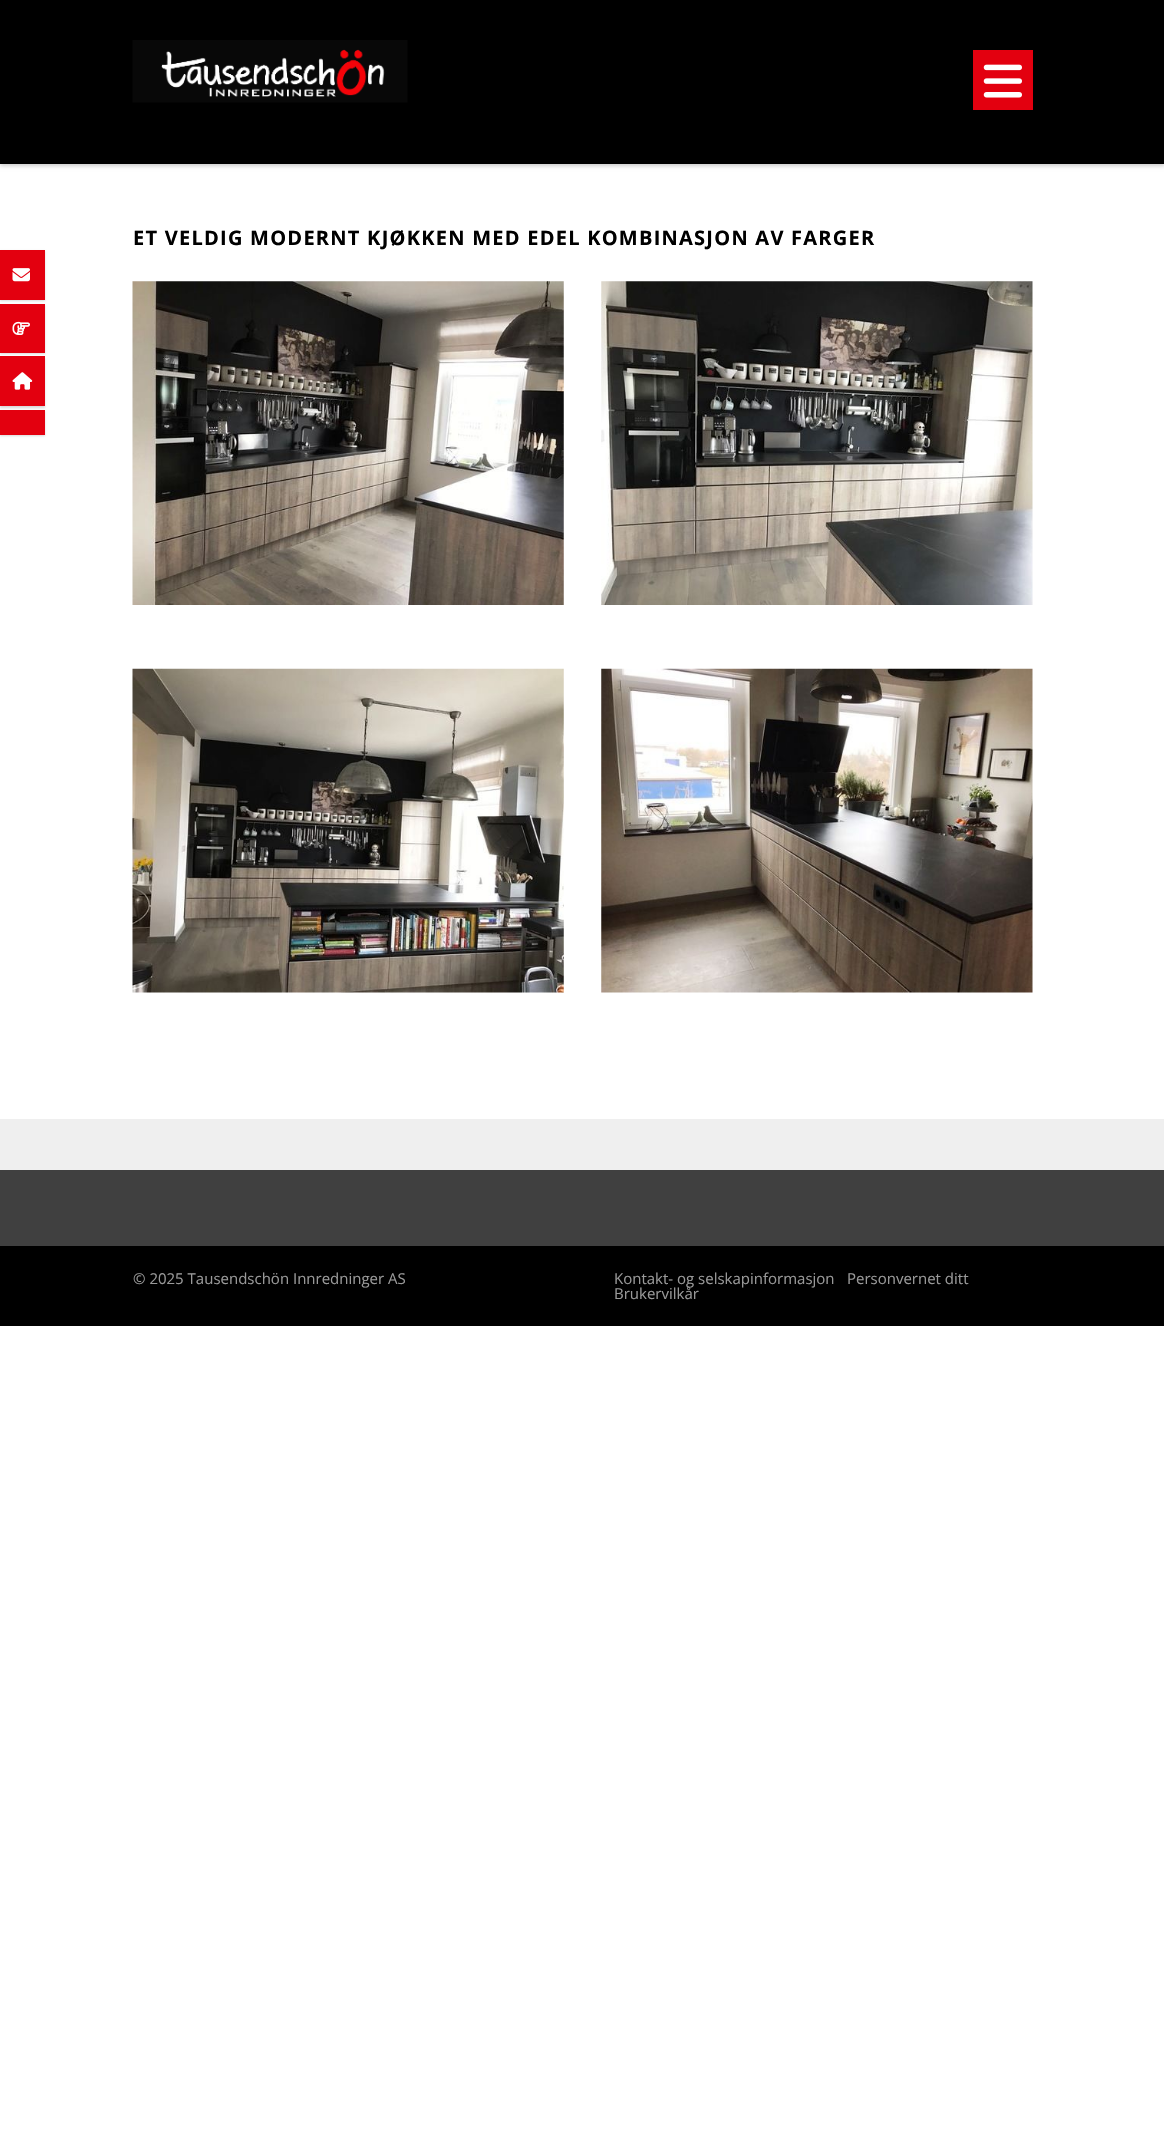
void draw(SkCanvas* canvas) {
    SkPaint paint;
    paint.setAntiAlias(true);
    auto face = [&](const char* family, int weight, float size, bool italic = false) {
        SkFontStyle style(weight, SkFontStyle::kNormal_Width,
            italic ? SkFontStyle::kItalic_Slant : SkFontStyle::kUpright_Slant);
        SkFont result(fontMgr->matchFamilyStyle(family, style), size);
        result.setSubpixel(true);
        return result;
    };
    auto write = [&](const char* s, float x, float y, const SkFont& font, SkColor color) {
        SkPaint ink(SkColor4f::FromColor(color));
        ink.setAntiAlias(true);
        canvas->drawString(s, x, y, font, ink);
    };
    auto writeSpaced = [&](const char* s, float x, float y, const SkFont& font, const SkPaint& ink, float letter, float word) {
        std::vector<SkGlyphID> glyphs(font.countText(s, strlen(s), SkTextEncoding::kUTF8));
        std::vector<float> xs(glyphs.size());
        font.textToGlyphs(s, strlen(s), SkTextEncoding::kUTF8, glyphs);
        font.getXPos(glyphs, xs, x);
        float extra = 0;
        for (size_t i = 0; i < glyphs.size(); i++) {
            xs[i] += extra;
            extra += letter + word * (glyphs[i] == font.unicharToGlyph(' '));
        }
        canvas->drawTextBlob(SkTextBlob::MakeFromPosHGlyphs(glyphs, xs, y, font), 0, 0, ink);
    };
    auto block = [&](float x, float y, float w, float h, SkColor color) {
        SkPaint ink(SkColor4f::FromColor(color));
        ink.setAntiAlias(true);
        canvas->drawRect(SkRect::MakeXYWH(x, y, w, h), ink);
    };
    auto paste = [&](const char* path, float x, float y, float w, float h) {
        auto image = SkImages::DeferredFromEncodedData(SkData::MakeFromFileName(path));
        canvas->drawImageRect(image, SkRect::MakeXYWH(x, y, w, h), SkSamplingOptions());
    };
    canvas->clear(SK_ColorWHITE);
    paint.setColor(SkColorSetARGB(51, 0, 0, 0));
    paint.setMaskFilter(SkMaskFilter::MakeBlur(kNormal_SkBlurStyle, 2));
    canvas->drawRect(SkRect::MakeXYWH(0, 3, 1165, 163), paint);
    paint.setMaskFilter(nullptr);
    block(0, 0, 1164, 164, SK_ColorBLACK);
    paste("pic1.png", 132, 40, 276, 63);
    block(973, 50, 60, 60, SkColorSetRGB(227, 0, 15));
    paste("pic2.png", 983, 64, 39, 34);
    auto kFont1 = face("Open Sans", 700, 20);
    paint.setColor(SK_ColorBLACK);
    writeSpaced("ET VELDIG MODERNT KJØKKEN MED EDEL KOMBINASJON AV FARGER", 133, 245, kFont1, paint, 1.25f, 0);
    paste("pic3.png", 132, 281, 432, 324);
    paste("pic4.png", 601, 281, 432, 324);
    paste("pic5.png", 132, 668, 432, 325);
    paste("pic6.png", 601, 668, 432, 325);
    paint.setColor(SkColorSetARGB(38, 0, 0, 0));
    paint.setMaskFilter(SkMaskFilter::MakeBlur(kNormal_SkBlurStyle, 1));
    canvas->drawRect(SkRect::MakeXYWH(0, 251, 45, 50), paint);
    paint.setMaskFilter(nullptr);
    block(0, 250, 45, 50, SkColorSetRGB(227, 0, 15));
    paste("pic7.png", 12, 268, 18, 14);
    paint.setMaskFilter(SkMaskFilter::MakeBlur(kNormal_SkBlurStyle, 1));
    canvas->drawRect(SkRect::MakeXYWH(0, 305, 45, 49), paint);
    paint.setMaskFilter(nullptr);
    block(0, 304, 45, 49, SkColorSetRGB(227, 0, 15));
    paste("pic8.png", 12, 321, 18, 14);
    paint.setMaskFilter(SkMaskFilter::MakeBlur(kNormal_SkBlurStyle, 1));
    canvas->drawRect(SkRect::MakeXYWH(0, 358, 45, 50), paint);
    paint.setMaskFilter(nullptr);
    block(0, 356, 45, 50, SkColorSetRGB(227, 0, 15));
    paste("pic9.png", 12, 372, 21, 18);
    paint.setMaskFilter(SkMaskFilter::MakeBlur(kNormal_SkBlurStyle, 1));
    canvas->drawRect(SkRect::MakeXYWH(0, 411, 45, 25), paint);
    paint.setMaskFilter(nullptr);
    block(0, 410, 45, 25, SkColorSetRGB(227, 0, 15));
    block(0, 1119, 1164, 51, SkColorSetRGB(239, 239, 239));
    block(0, 1170, 1164, 76, SkColorSetRGB(64, 64, 64));
    block(0, 1246, 1164, 80, SK_ColorBLACK);
    auto kFont2 = face("Open Sans", 400, 15);
    write("© 2025 Tausendschön Innredninger AS", 133, 1284, kFont2, SkColorSetRGB(153, 153, 153));
    write("Kontakt- og selskapinformasjon", 614, 1284, kFont2, SkColorSetRGB(153, 153, 153));
    write("Personvernet ditt", 847, 1284, kFont2, SkColorSetRGB(153, 153, 153));
    write("Brukervilkår", 614, 1299, kFont2, SkColorSetRGB(153, 153, 153));
}
